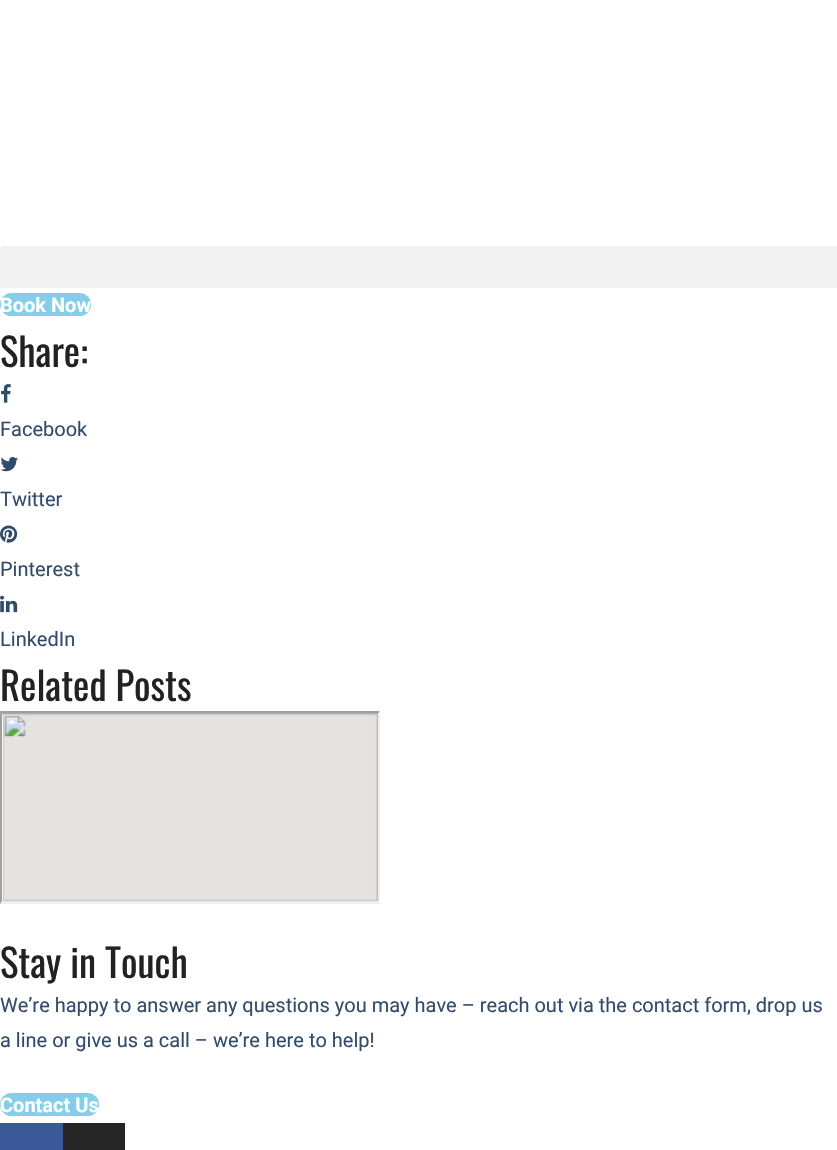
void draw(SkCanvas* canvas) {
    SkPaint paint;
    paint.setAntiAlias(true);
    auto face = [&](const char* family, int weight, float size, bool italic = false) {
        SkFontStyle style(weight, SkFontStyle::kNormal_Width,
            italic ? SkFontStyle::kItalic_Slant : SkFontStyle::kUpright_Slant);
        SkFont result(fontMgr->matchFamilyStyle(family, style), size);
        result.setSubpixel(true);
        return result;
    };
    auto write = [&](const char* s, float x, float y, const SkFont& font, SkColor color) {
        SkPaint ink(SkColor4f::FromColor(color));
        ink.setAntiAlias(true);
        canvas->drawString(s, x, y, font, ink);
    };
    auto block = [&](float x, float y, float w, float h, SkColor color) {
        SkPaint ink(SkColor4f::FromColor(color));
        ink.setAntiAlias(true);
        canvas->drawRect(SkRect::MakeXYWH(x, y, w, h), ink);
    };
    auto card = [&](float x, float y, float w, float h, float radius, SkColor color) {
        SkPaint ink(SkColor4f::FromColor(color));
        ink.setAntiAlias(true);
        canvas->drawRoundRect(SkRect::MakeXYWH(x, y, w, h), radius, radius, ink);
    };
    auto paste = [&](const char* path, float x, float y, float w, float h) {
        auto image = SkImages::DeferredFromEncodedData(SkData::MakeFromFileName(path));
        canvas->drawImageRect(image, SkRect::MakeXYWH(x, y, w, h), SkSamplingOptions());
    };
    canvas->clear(SK_ColorWHITE);
    card(0, 246, 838, 42, 4, SkColorSetRGB(242, 242, 242));
    card(0, 293, 91, 23, 11.5f, SkColorSetRGB(132, 206, 231));
    auto kFont1 = face("Roboto", 700, 20);
    write("Book Now", 0, 312, kFont1, SK_ColorWHITE);
    auto kFont2 = face("Oswald", 400, 38.75f);
    write("Share:", 0, 367, kFont2, SkColorSetRGB(34, 34, 34));
    paste("pic1.png", 1, 384, 10, 19);
    auto kFont3 = face("Roboto", 400, 20);
    write("Facebook", 0, 436, kFont3, SkColorSetRGB(49, 76, 107));
    paste("pic2.png", 0, 457, 18, 15);
    write("Twitter", 0, 506, kFont3, SkColorSetRGB(49, 76, 107));
    paste("pic3.png", 0, 525, 18, 18);
    write("Pinterest", 0, 576, kFont3, SkColorSetRGB(49, 76, 107));
    paste("pic4.png", 0, 595, 18, 18);
    write("LinkedIn", 0, 646, kFont3, SkColorSetRGB(49, 76, 107));
    write("Related Posts", 0, 701, kFont2, SkColorSetRGB(34, 34, 34));
    paint.setColor(SkColorSetRGB(159, 159, 159));
    canvas->drawPath(SkPathBuilder().moveTo(0, 711).lineTo(380, 711).lineTo(378, 714).lineTo(2, 714).close().detach(), paint);
    paint.setColor(SkColorSetRGB(238, 238, 238));
    canvas->drawPath(SkPathBuilder().moveTo(380, 711).lineTo(380, 904).lineTo(378, 901).lineTo(378, 714).close().detach(), paint);
    canvas->drawPath(SkPathBuilder().moveTo(380, 904).lineTo(0, 904).lineTo(2, 901).lineTo(378, 901).close().detach(), paint);
    paint.setColor(SkColorSetRGB(159, 159, 159));
    canvas->drawPath(SkPathBuilder().moveTo(0, 904).lineTo(0, 711).lineTo(2, 714).lineTo(2, 901).close().detach(), paint);
    paste("pic5.png", 2, 713, 376, 188);
    write("Stay in Touch", 0, 978, kFont2, SkColorSetRGB(34, 34, 34));
    write("We’re happy to answer any questions you may have – reach out via the contact form, drop us", 0, 1012, kFont3, SkColorSetRGB(49, 76, 107));
    write("a line or give us a call – we’re here to help!", 0, 1047, kFont3, SkColorSetRGB(49, 76, 107));
    card(0, 1093, 99, 23, 11.5f, SkColorSetRGB(132, 206, 231));
    write("Contact Us", 0, 1112, kFont1, SK_ColorWHITE);
    block(0, 1123, 63, 27, SkColorSetRGB(59, 89, 152));
    block(63, 1123, 62, 27, SkColorSetRGB(38, 38, 38));
}
